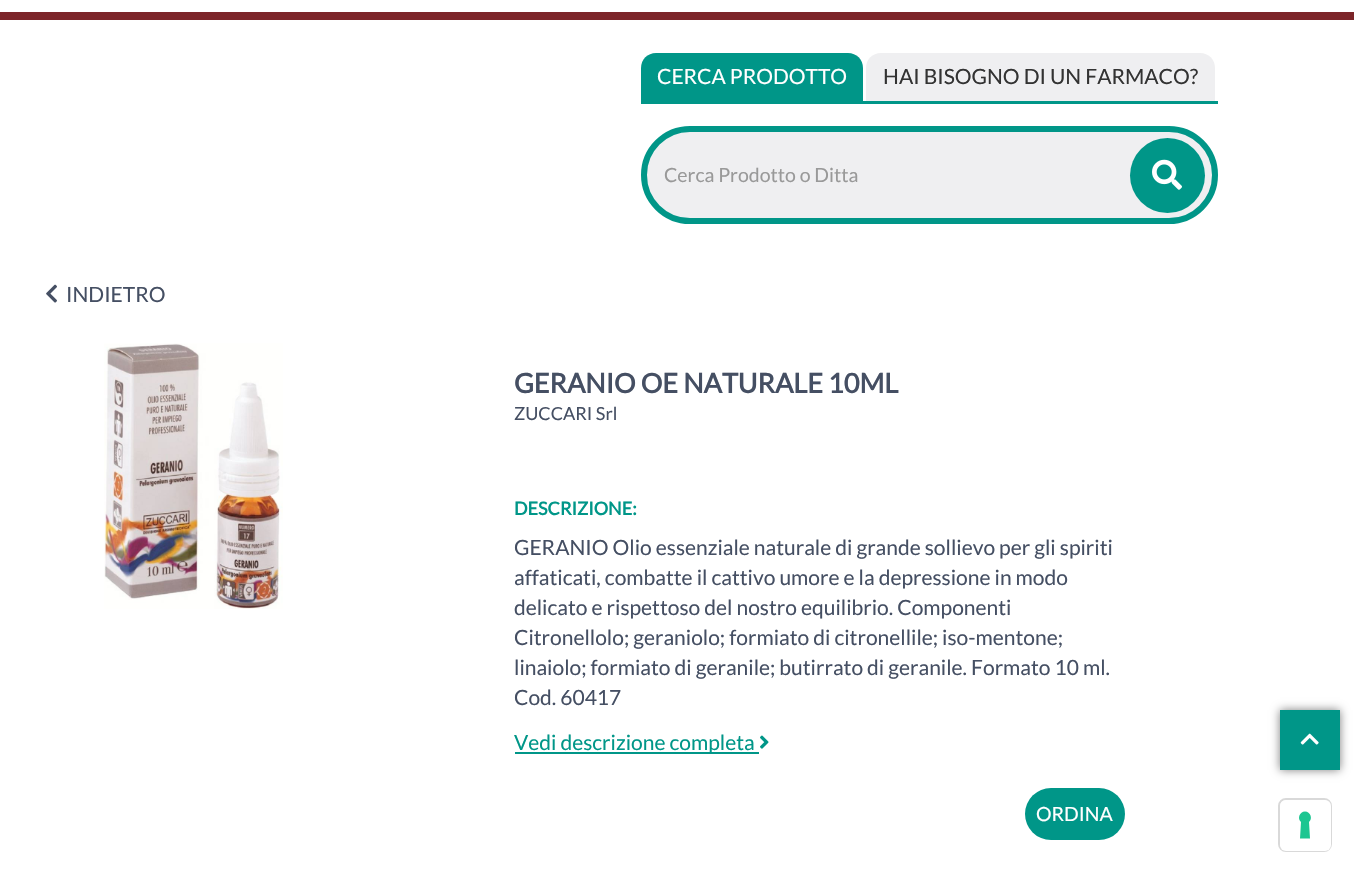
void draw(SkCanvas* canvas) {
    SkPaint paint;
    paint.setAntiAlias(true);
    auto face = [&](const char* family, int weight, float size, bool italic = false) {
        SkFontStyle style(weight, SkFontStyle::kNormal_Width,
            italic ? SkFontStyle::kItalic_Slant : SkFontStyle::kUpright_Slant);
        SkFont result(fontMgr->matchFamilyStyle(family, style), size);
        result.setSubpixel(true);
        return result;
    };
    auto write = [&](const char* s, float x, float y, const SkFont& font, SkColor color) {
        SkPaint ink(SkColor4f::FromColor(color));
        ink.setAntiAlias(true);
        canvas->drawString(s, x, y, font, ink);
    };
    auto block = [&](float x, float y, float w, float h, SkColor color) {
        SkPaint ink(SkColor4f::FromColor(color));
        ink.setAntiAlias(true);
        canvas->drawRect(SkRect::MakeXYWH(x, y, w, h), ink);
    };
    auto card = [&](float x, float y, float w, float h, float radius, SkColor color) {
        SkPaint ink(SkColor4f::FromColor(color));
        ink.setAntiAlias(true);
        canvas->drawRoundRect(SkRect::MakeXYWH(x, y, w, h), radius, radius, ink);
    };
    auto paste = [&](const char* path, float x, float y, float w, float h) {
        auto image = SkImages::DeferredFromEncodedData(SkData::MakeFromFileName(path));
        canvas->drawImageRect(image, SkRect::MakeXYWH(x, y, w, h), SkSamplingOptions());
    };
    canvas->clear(SK_ColorWHITE);
    block(0, 12, 1354, 8, SkColorSetRGB(124, 37, 41));
    paint.setColor(SkColorSetRGB(0, 150, 136));
    canvas->drawPath(SkPathBuilder().moveTo(656, 53).lineTo(848, 53).cubicTo(856.5f, 53, 863, 59.5f, 863, 68).lineTo(863, 101).lineTo(641, 101).lineTo(641, 68).cubicTo(641, 59.5f, 647.5f, 53, 656, 53).close().detach(), paint);
    auto kFont1 = face("Lato", 400, 21);
    write("CERCA PRODOTTO", 657, 84, kFont1, SK_ColorWHITE);
    paint.setColor(SkColorSetRGB(239, 239, 241));
    canvas->drawPath(SkPathBuilder().moveTo(881, 53).lineTo(1200, 53).cubicTo(1208.5f, 53, 1215, 59.5f, 1215, 68).lineTo(1215, 101).lineTo(866, 101).lineTo(866, 68).cubicTo(866, 59.5f, 872.5f, 53, 881, 53).close().detach(), paint);
    write("HAI BISOGNO DI UN FARMACO?", 883, 84, kFont1, SkColorSetRGB(51, 51, 51));
    block(641, 101, 577, 3, SkColorSetRGB(0, 150, 136));
    canvas->drawRoundRect(SkRect::MakeXYWH(644, 129, 571, 92), 46, 46, paint);
    paint.setStyle(SkPaint::kStroke_Style);
    paint.setStrokeWidth(6);
    paint.setColor(SkColorSetRGB(0, 150, 136));
    canvas->drawRoundRect(SkRect::MakeXYWH(644, 129, 571, 92), 46, 46, paint);
    auto kFont2 = face("Lato", 400, 19.5f);
    write("Cerca Prodotto o Ditta", 664, 182, kFont2, SkColorSetRGB(153, 153, 153));
    paint.setStyle(SkPaint::kFill_Style);
    canvas->drawCircle(1167.5f, 175.5f, 37.5f, paint);
    paste("pic1.png", 1152, 159, 30, 31);
    paste("pic2.png", 46, 284, 11, 19);
    write("INDIETRO", 66, 302, kFont1, SkColorSetRGB(69, 79, 99));
    paste("pic3.png", 104, 343, 179, 266);
    auto kFont3 = face("Lato", 700, 27);
    write("GERANIO OE NATURALE 10ML", 514, 393, kFont3, SkColorSetRGB(69, 79, 99));
    auto kFont4 = face("Lato", 400, 18);
    write("ZUCCARI Srl", 514, 420, kFont4, SkColorSetRGB(69, 79, 99));
    auto kFont5 = face("Lato", 700, 18);
    write("DESCRIZIONE:", 514, 515, kFont5, SkColorSetRGB(0, 150, 136));
    write("GERANIO Olio essenziale naturale di grande sollievo per gli spiriti", 514, 555, kFont1, SkColorSetRGB(69, 79, 99));
    write("affaticati, combatte il cattivo umore e la depressione in modo", 514, 585, kFont1, SkColorSetRGB(69, 79, 99));
    write("delicato e rispettoso del nostro equilibrio. Componenti", 514, 615, kFont1, SkColorSetRGB(69, 79, 99));
    write("Citronellolo; geraniolo; formiato di citronellile; iso-mentone;", 514, 645, kFont1, SkColorSetRGB(69, 79, 99));
    write("linaiolo; formiato di geranile; butirrato di geranile. Formato 10 ml.", 514, 675, kFont1, SkColorSetRGB(69, 79, 99));
    write("Cod. 60417", 514, 705, kFont1, SkColorSetRGB(69, 79, 99));
    block(515, 752, 244, 2, SkColorSetRGB(0, 150, 136));
    write("Vedi descrizione completa", 514, 750, kFont1, SkColorSetRGB(0, 150, 136));
    paste("pic4.png", 760, 735, 9, 14);
    card(1025, 788, 100, 52, 26, SkColorSetRGB(0, 150, 136));
    write("ORDINA", 1036, 821, kFont2, SK_ColorWHITE);
    paint.setColor(SkColorSetARGB(128, 0, 0, 0));
    paint.setMaskFilter(SkMaskFilter::MakeBlur(kNormal_SkBlurStyle, 4.5f));
    canvas->drawRect(SkRect::MakeXYWH(1280, 710, 60, 60), paint);
    paint.setMaskFilter(nullptr);
    block(1280, 710, 60, 60, SkColorSetRGB(0, 150, 136));
    paste("pic5.png", 1300, 733, 19, 12);
    paint.setStyle(SkPaint::kStroke_Style);
    paint.setStrokeWidth(2);
    paint.setColor(SkColorSetRGB(217, 217, 217));
    canvas->drawRoundRect(SkRect::MakeXYWH(1279, 799, 52, 52), 7, 7, paint);
    card(1280, 800, 51, 51, 6, SK_ColorWHITE);
    paint.setStyle(SkPaint::kFill_Style);
    paint.setColor(SkColorSetRGB(28, 198, 145));
    canvas->drawPath(SkPathBuilder(SkPathFillType::kEvenOdd).moveTo(1305, 811.5f).cubicTo(1310.5f, 811.5f, 1313, 818.5f, 1309, 822).lineTo(1310, 838.5f).lineTo(1300, 838.5f).lineTo(1301, 822).cubicTo(1297, 818.5f, 1299.5f, 811.5f, 1305, 811.5f).close().detach(), paint);
}
